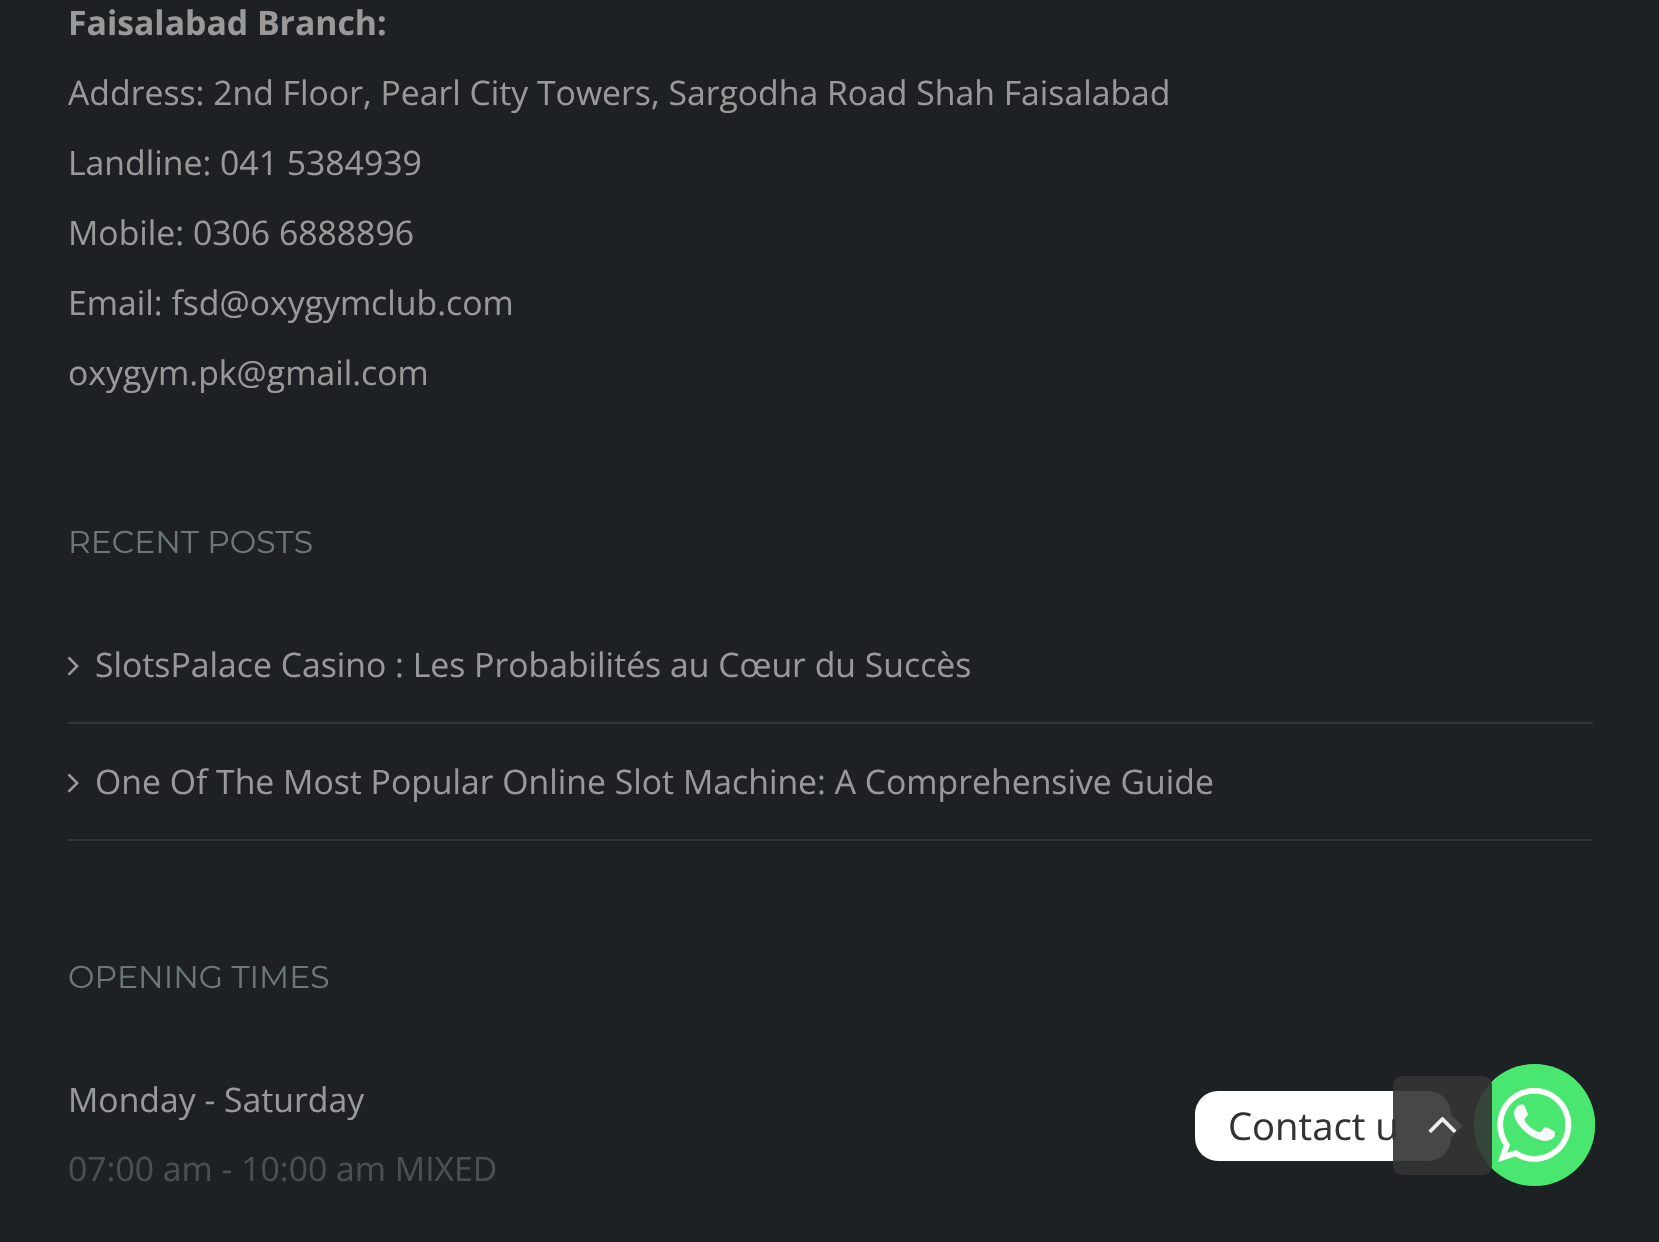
void draw(SkCanvas* canvas) {
    SkPaint paint;
    paint.setAntiAlias(true);
    auto face = [&](const char* family, int weight, float size, bool italic = false) {
        SkFontStyle style(weight, SkFontStyle::kNormal_Width,
            italic ? SkFontStyle::kItalic_Slant : SkFontStyle::kUpright_Slant);
        SkFont result(fontMgr->matchFamilyStyle(family, style), size);
        result.setSubpixel(true);
        return result;
    };
    auto write = [&](const char* s, float x, float y, const SkFont& font, SkColor color) {
        SkPaint ink(SkColor4f::FromColor(color));
        ink.setAntiAlias(true);
        canvas->drawString(s, x, y, font, ink);
    };
    auto block = [&](float x, float y, float w, float h, SkColor color) {
        SkPaint ink(SkColor4f::FromColor(color));
        ink.setAntiAlias(true);
        canvas->drawRect(SkRect::MakeXYWH(x, y, w, h), ink);
    };
    auto card = [&](float x, float y, float w, float h, float radius, SkColor color) {
        SkPaint ink(SkColor4f::FromColor(color));
        ink.setAntiAlias(true);
        canvas->drawRoundRect(SkRect::MakeXYWH(x, y, w, h), radius, radius, ink);
    };
    auto paste = [&](const char* path, float x, float y, float w, float h) {
        auto image = SkImages::DeferredFromEncodedData(SkData::MakeFromFileName(path));
        canvas->drawImageRect(image, SkRect::MakeXYWH(x, y, w, h), SkSamplingOptions());
    };
    canvas->clear(SkColorSetRGB(30, 33, 35));
    auto kFont1 = face("Open Sans", 700, 33.75f);
    write("Faisalabad Branch:", 68, 35, kFont1, SkColorSetRGB(153, 153, 153));
    auto kFont2 = face("Open Sans", 400, 33.75f);
    write("Address: 2nd Floor, Pearl City Towers, Sargodha Road Shah Faisalabad", 68, 105, kFont2, SkColorSetRGB(153, 153, 153));
    write("Landline: 041 5384939", 68, 175, kFont2, SkColorSetRGB(153, 153, 153));
    write("Mobile: 0306 6888896", 68, 245, kFont2, SkColorSetRGB(153, 153, 153));
    write("Email: fsd@oxygymclub.com", 68, 315, kFont2, SkColorSetRGB(153, 153, 153));
    write("oxygym.pk@gmail.com", 68, 385, kFont2, SkColorSetRGB(153, 153, 153));
    auto kFont3 = face("Montserrat", 400, 31.5f);
    write("RECENT POSTS", 68, 553, kFont3, SkColorSetRGB(108, 119, 123));
    block(68, 722, 1525, 2, SkColorSetRGB(51, 54, 56));
    paste("pic1.png", 67, 656, 12, 20);
    write("SlotsPalace Casino : Les Probabilités au Cœur du Succès", 95, 677, kFont2, SkColorSetRGB(153, 153, 153));
    block(68, 839, 1525, 2, SkColorSetRGB(51, 54, 56));
    paste("pic1.png", 67, 773, 12, 20);
    write("One Of The Most Popular Online Slot Machine: A Comprehensive Guide", 95, 794, kFont2, SkColorSetRGB(153, 153, 153));
    write("OPENING TIMES", 68, 988, kFont3, SkColorSetRGB(108, 119, 123));
    write("Monday - Saturday", 68, 1112, kFont2, SkColorSetRGB(153, 153, 153));
    write("07:00 am - 10:00 am MIXED", 68, 1181, kFont2, SkColorSetRGB(73, 80, 83));
    card(1195, 1091, 256, 70, 23, SK_ColorWHITE);
    auto kFont4 = face("Open Sans", 400, 38.25f);
    write("Contact u", 1228, 1140, kFont4, SkColorSetRGB(51, 51, 51));
    paint.setColor(SK_ColorWHITE);
    canvas->drawPath(SkPathBuilder().moveTo(1451, 1137.5f).lineTo(1451, 1115).lineTo(1462.5f, 1126).close().detach(), paint);
    card(1474, 1064, 121, 122, 60.5f, SkColorSetRGB(73, 230, 112));
    paste("pic2.png", 1474, 1064, 121, 122);
    card(1393, 1076, 99, 99, 9, SkColorSetARGB(230, 51, 51, 51));
    paste("pic3.png", 1428, 1116, 29, 17);
}
